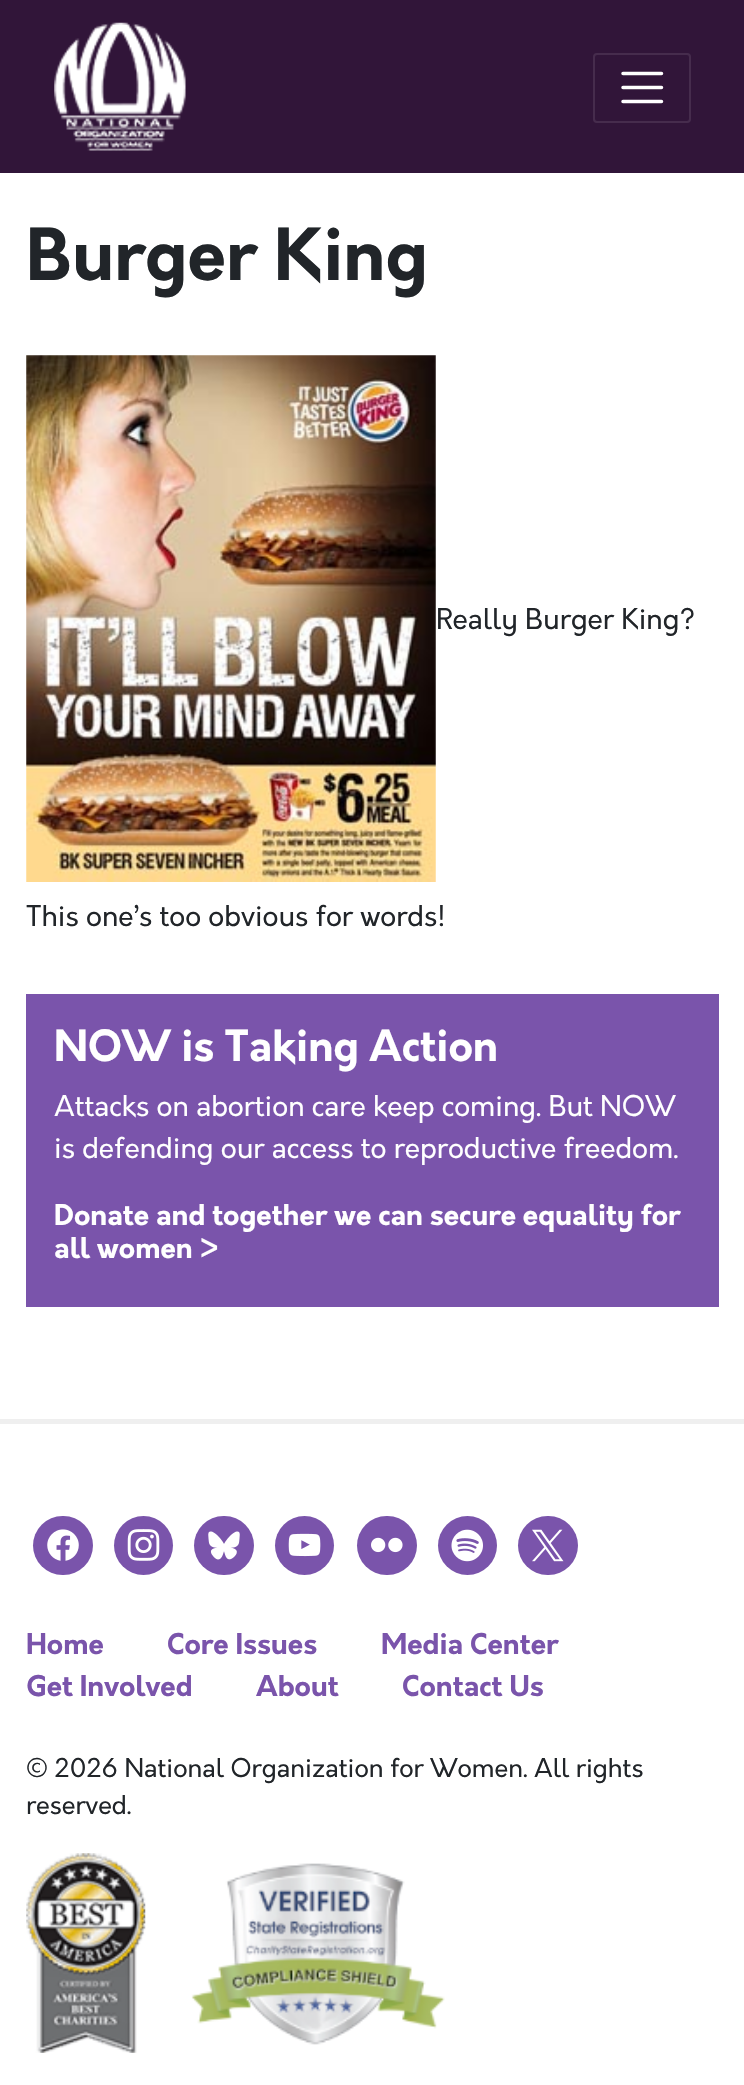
void draw(SkCanvas* canvas) {
    SkPaint paint;
    paint.setAntiAlias(true);
    auto face = [&](const char* family, int weight, float size, bool italic = false) {
        SkFontStyle style(weight, SkFontStyle::kNormal_Width,
            italic ? SkFontStyle::kItalic_Slant : SkFontStyle::kUpright_Slant);
        SkFont result(fontMgr->matchFamilyStyle(family, style), size);
        result.setSubpixel(true);
        return result;
    };
    auto write = [&](const char* s, float x, float y, const SkFont& font, SkColor color) {
        SkPaint ink(SkColor4f::FromColor(color));
        ink.setAntiAlias(true);
        canvas->drawString(s, x, y, font, ink);
    };
    auto block = [&](float x, float y, float w, float h, SkColor color) {
        SkPaint ink(SkColor4f::FromColor(color));
        ink.setAntiAlias(true);
        canvas->drawRect(SkRect::MakeXYWH(x, y, w, h), ink);
    };
    auto card = [&](float x, float y, float w, float h, float radius, SkColor color) {
        SkPaint ink(SkColor4f::FromColor(color));
        ink.setAntiAlias(true);
        canvas->drawRoundRect(SkRect::MakeXYWH(x, y, w, h), radius, radius, ink);
    };
    auto paste = [&](const char* path, float x, float y, float w, float h) {
        auto image = SkImages::DeferredFromEncodedData(SkData::MakeFromFileName(path));
        canvas->drawImageRect(image, SkRect::MakeXYWH(x, y, w, h), SkSamplingOptions());
    };
    canvas->clear(SK_ColorWHITE);
    block(0, 0, 744, 173, SkColorSetRGB(49, 21, 57));
    paste("pic1.png", 54, 22, 132, 129);
    paint.setStyle(SkPaint::kStroke_Style);
    paint.setStrokeWidth(2);
    paint.setColor(SkColorSetRGB(70, 44, 77));
    canvas->drawRoundRect(SkRect::MakeXYWH(594, 54, 96, 68), 3, 3, paint);
    paint.setStrokeWidth(3.5f);
    paint.setStrokeCap(SkPaint::kRound_Cap);
    paint.setColor(SK_ColorWHITE);
    canvas->drawPath(SkPathBuilder().moveTo(623, 73.5f).lineTo(661.5f, 73.5f).moveTo(623, 87.5f).lineTo(661.5f, 87.5f).moveTo(623, 101.5f).lineTo(661.5f, 101.5f).detach(), paint);
    auto kFont1 = face("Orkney", 700, 70);
    write("Burger King", 26, 280, kFont1, SkColorSetRGB(33, 37, 41));
    paste("pic2.png", 26, 355, 410, 527);
    auto kFont2 = face("Orkney", 400, 28);
    write("Really Burger King?", 436, 629, kFont2, SkColorSetRGB(33, 37, 41));
    write("This one’s too obvious for words!", 26, 926, kFont2, SkColorSetRGB(33, 37, 41));
    block(26, 994, 693, 313, SkColorSetRGB(122, 84, 171));
    auto kFont3 = face("Orkney", 700, 42);
    write("NOW is Taking Action", 54, 1061, kFont3, SK_ColorWHITE);
    write("Attacks on abortion care keep coming. But NOW", 54, 1116, kFont2, SK_ColorWHITE);
    write("is defending our access to reproductive freedom.", 54, 1158, kFont2, SK_ColorWHITE);
    auto kFont4 = face("Orkney", 700, 28);
    write("Donate and together we can secure equality for", 54, 1225, kFont4, SK_ColorWHITE);
    write("all women >", 54, 1258, kFont4, SK_ColorWHITE);
    block(0, 1419, 744, 5, SkColorSetRGB(239, 239, 239));
    card(33, 1516, 60, 59, 29.5f, SkColorSetRGB(122, 84, 171));
    paste("pic3.png", 47, 1529, 32, 32);
    paint.setStyle(SkPaint::kFill_Style);
    paint.setColor(SkColorSetRGB(122, 84, 171));
    canvas->drawCircle(143.5f, 1545.5f, 29.5f, paint);
    paste("pic4.png", 127, 1529, 33, 32);
    card(194, 1516, 60, 59, 29.5f, SkColorSetRGB(122, 84, 171));
    paste("pic5.png", 208, 1531, 32, 29);
    canvas->drawCircle(304.5f, 1545.5f, 29.5f, paint);
    paste("pic6.png", 288, 1533, 33, 24);
    card(357, 1516, 60, 59, 29.5f, SkColorSetRGB(122, 84, 171));
    paste("pic7.png", 371, 1537, 32, 16);
    canvas->drawCircle(467.5f, 1545.5f, 29.5f, paint);
    paste("pic8.png", 451, 1529, 32, 33);
    card(518, 1516, 60, 59, 29.5f, SkColorSetRGB(122, 84, 171));
    paste("pic9.png", 532, 1529, 32, 33);
    write("Home", 26, 1654, kFont4, SkColorSetRGB(122, 84, 171));
    write("Core Issues", 167, 1654, kFont4, SkColorSetRGB(122, 84, 171));
    write("Media Center", 381, 1654, kFont4, SkColorSetRGB(122, 84, 171));
    write("Get Involved", 26, 1696, kFont4, SkColorSetRGB(122, 84, 171));
    write("About", 256, 1696, kFont4, SkColorSetRGB(122, 84, 171));
    write("Contact Us", 402, 1696, kFont4, SkColorSetRGB(122, 84, 171));
    auto kFont5 = face("Orkney", 400, 25.2f);
    write("© 2026 National Organization for Women. All rights", 26, 1777, kFont5, SkColorSetRGB(33, 37, 41));
    write("reserved.", 26, 1814, kFont5, SkColorSetRGB(33, 37, 41));
    paste("pic10.png", 26, 1853, 120, 200);
    paste("pic11.png", 191, 1863, 254, 182);
}
